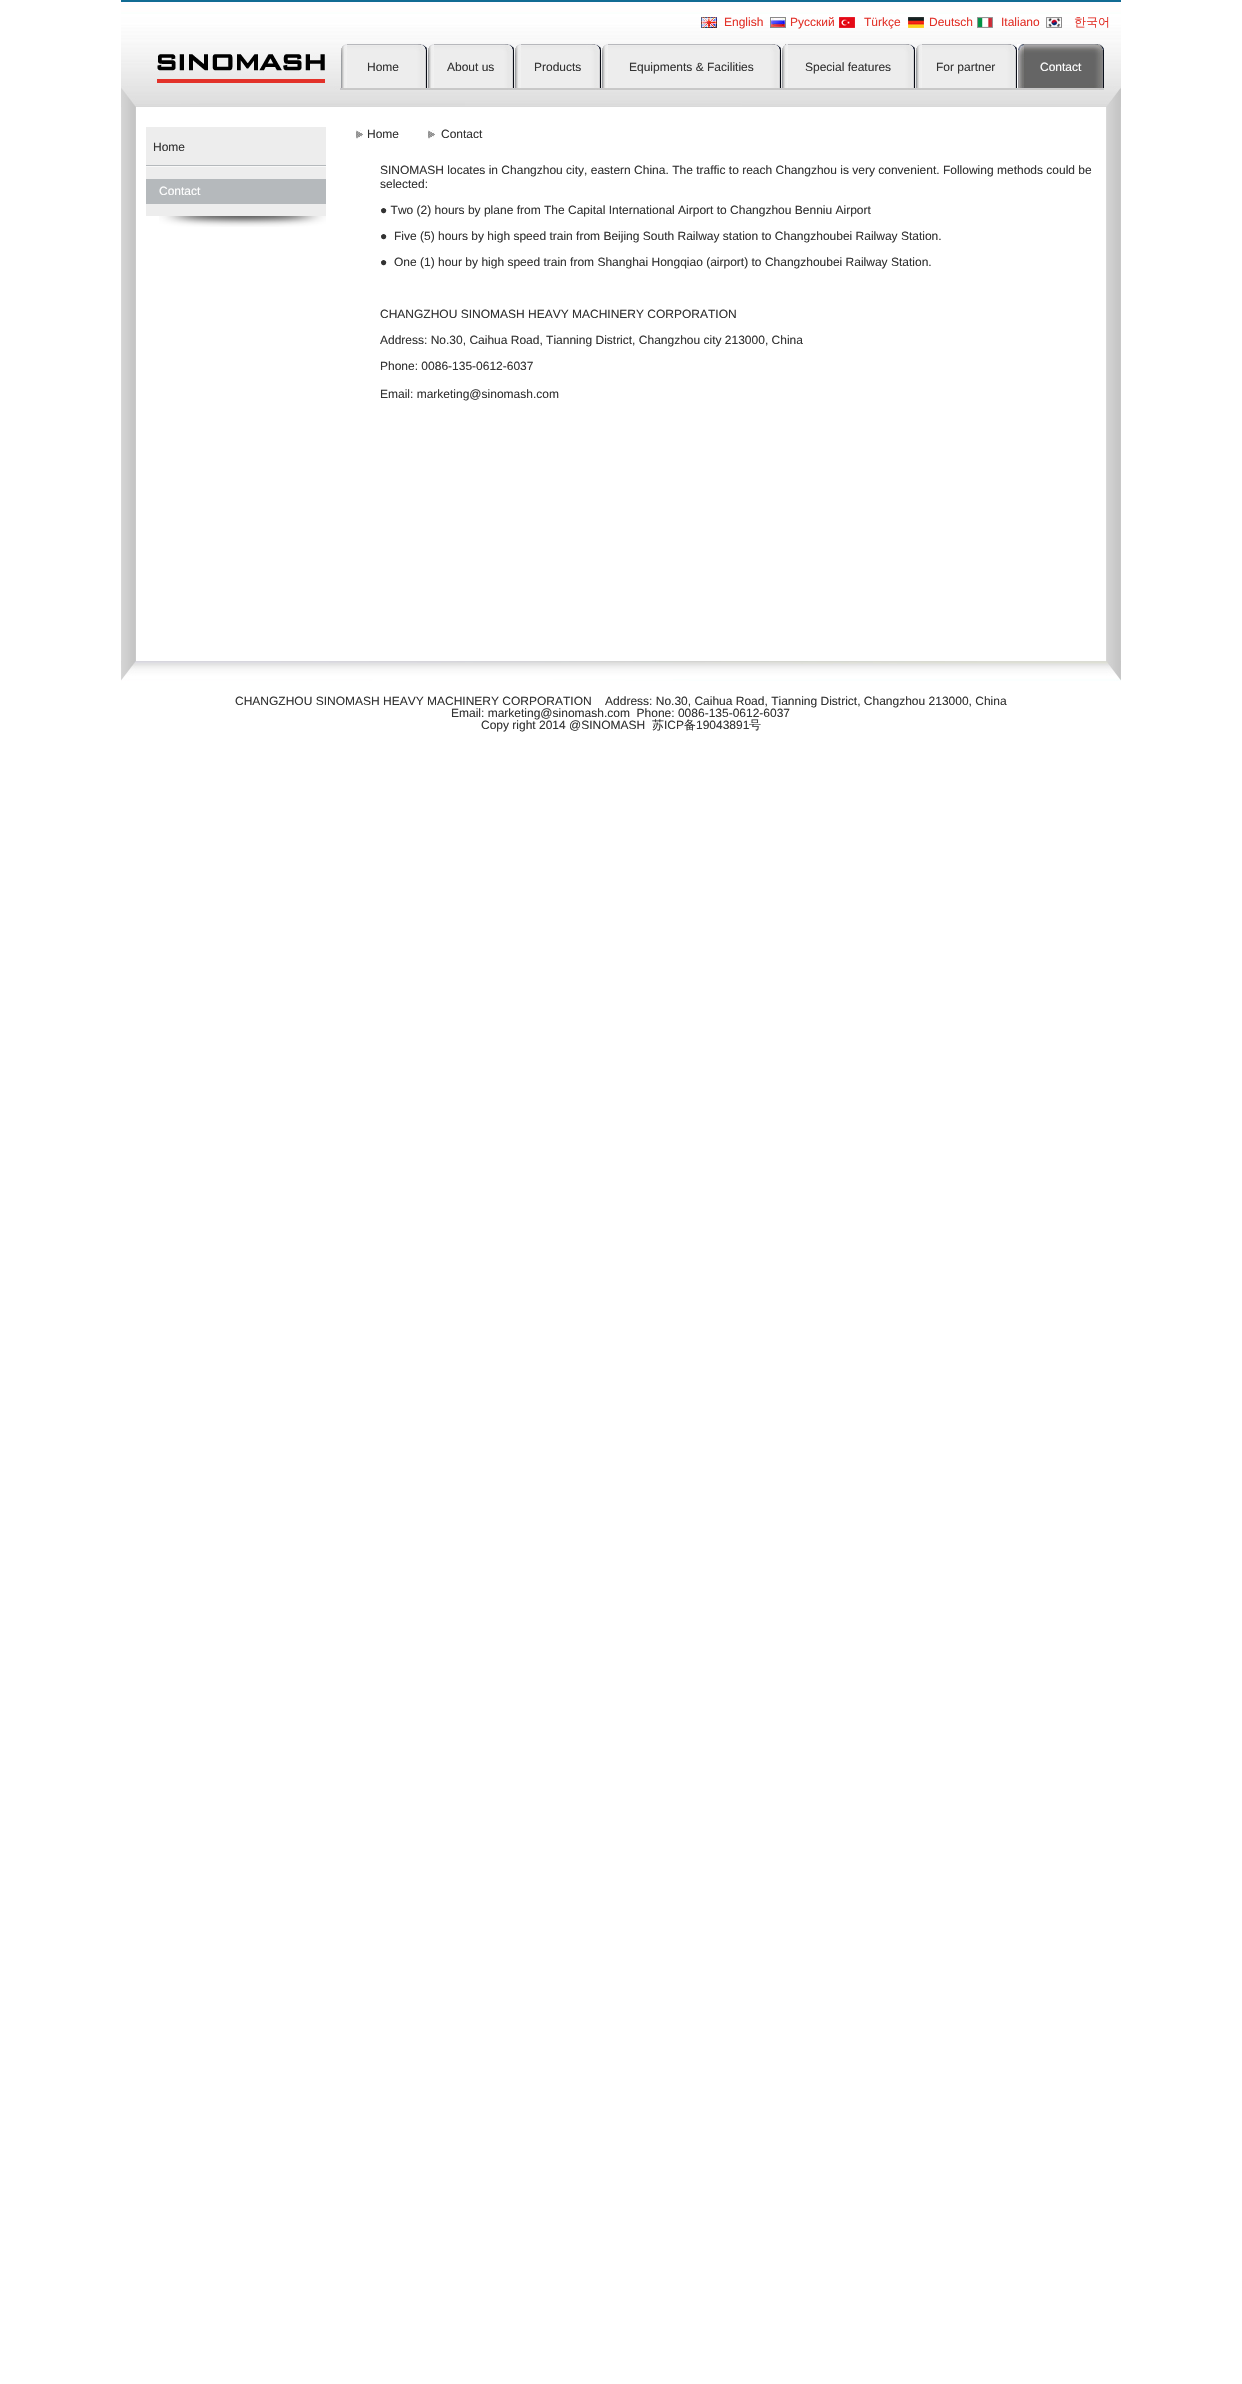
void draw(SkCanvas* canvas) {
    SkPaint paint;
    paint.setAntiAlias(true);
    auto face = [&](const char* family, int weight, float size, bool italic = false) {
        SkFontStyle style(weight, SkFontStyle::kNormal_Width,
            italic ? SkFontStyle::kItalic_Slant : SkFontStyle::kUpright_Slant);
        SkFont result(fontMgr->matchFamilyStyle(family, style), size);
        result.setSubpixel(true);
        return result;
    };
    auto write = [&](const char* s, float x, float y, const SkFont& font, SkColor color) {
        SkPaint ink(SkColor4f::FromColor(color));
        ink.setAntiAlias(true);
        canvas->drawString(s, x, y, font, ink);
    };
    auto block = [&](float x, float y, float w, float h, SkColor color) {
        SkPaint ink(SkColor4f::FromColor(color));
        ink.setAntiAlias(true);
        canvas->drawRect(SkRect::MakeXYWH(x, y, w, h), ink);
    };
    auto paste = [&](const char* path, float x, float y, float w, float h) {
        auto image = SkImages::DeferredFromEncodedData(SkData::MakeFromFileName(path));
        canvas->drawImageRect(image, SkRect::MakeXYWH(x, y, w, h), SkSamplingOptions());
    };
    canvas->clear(SK_ColorWHITE);
    paste("pic1.png", 121, 0, 1000, 44);
    paste("pic2.png", 701, 17, 16, 11);
    auto kFont1 = face("Liberation Sans", 400, 12);
    write("English", 724, 26, kFont1, SkColorSetRGB(226, 50, 41));
    paste("pic3.png", 770, 17, 16, 11);
    write("Pусский", 790, 26, kFont1, SkColorSetRGB(226, 50, 41));
    paste("pic4.png", 839, 17, 16, 11);
    write("Türkçe", 864, 26, kFont1, SkColorSetRGB(226, 50, 41));
    paste("pic5.png", 908, 17, 16, 11);
    write("Deutsch", 929, 26, kFont1, SkColorSetRGB(226, 50, 41));
    paste("pic6.png", 977, 17, 16, 11);
    write("Italiano", 1001, 26, kFont1, SkColorSetRGB(226, 50, 41));
    paste("pic7.png", 1046, 17, 16, 11);
    auto kFont2 = face("WenQuanYi Zen Hei", 500, 12);
    write("한국어", 1074, 26, kFont2, SkColorSetRGB(226, 50, 41));
    paste("pic8.png", 121, 44, 219, 46);
    paste("pic9.png", 121, 54, 204, 36);
    paste("pic10.png", 340, 44, 87, 46);
    write("Home", 367, 71, kFont1, SkColorSetRGB(51, 51, 51));
    paste("pic10.png", 427, 44, 87, 46);
    write("About us", 447, 71, kFont1, SkColorSetRGB(51, 51, 51));
    paste("pic10.png", 514, 44, 87, 46);
    write("Products", 534, 71, kFont1, SkColorSetRGB(51, 51, 51));
    paste("pic11.png", 601, 44, 180, 46);
    write("Equipments & Facilities", 629, 71, kFont1, SkColorSetRGB(51, 51, 51));
    paste("pic12.png", 781, 44, 134, 46);
    write("Special features", 805, 71, kFont1, SkColorSetRGB(51, 51, 51));
    paste("pic13.png", 915, 44, 102, 46);
    write("For partner", 936, 71, kFont1, SkColorSetRGB(51, 51, 51));
    paste("pic14.png", 1017, 44, 87, 46);
    write("Contact", 1040, 71, kFont1, SK_ColorWHITE);
    paste("pic15.png", 1104, 44, 17, 46);
    paste("pic16.png", 121, 90, 1000, 17);
    paste("pic17.png", 121, 107, 15, 554);
    paste("pic18.png", 146, 127, 180, 40);
    write("Home", 153, 151, kFont1, SkColorSetRGB(51, 51, 51));
    block(146, 167, 180, 49, SkColorSetRGB(237, 237, 237));
    block(146, 179, 180, 25, SkColorSetRGB(181, 185, 188));
    write("Contact", 159, 195, kFont1, SK_ColorWHITE);
    paste("pic19.png", 159, 216, 167, 11);
    paste("pic20.png", 356, 130, 7, 9);
    write("Home", 367, 138, kFont1, SkColorSetRGB(51, 51, 51));
    paste("pic20.png", 428, 130, 7, 9);
    write("Contact", 441, 138, kFont1, SkColorSetRGB(51, 51, 51));
    write("SINOMASH locates in Changzhou city, eastern China. The traffic to reach Changzhou is very convenient. Following methods could be", 380, 174, kFont1, SkColorSetRGB(51, 51, 51));
    write("selected:", 380, 188, kFont1, SkColorSetRGB(51, 51, 51));
    write("● Two (2) hours by plane from The Capital International Airport to Changzhou Benniu Airport", 380, 214, kFont1, SkColorSetRGB(51, 51, 51));
    write("●", 380, 240, kFont1, SkColorSetRGB(51, 51, 51));
    write("Five (5) hours by high speed train from Beijing South Railway station to Changzhoubei Railway Station.", 394, 240, kFont1, SkColorSetRGB(51, 51, 51));
    write("●", 380, 266, kFont1, SkColorSetRGB(51, 51, 51));
    write("One (1) hour by high speed train from Shanghai Hongqiao (airport) to Changzhoubei Railway Station.", 394, 266, kFont1, SkColorSetRGB(51, 51, 51));
    write("CHANGZHOU SINOMASH HEAVY MACHINERY CORPORATION", 380, 318, kFont1, SkColorSetRGB(51, 51, 51));
    write("Address: No.30, Caihua Road, Tianning District, Changzhou city 213000, China", 380, 344, kFont1, SkColorSetRGB(51, 51, 51));
    write("Phone: 0086-135-0612-6037", 380, 370, kFont1, SkColorSetRGB(51, 51, 51));
    write("Email: marketing@sinomash.com", 380, 398, kFont1, SkColorSetRGB(51, 51, 51));
    paste("pic21.png", 1106, 107, 15, 554);
    paste("pic22.png", 121, 661, 1000, 20);
    write("CHANGZHOU SINOMASH HEAVY MACHINERY CORPORATION    Address: No.30, Caihua Road, Tianning District, Changzhou 213000, China", 235, 705, kFont1, SkColorSetRGB(51, 51, 51));
    write("Email: marketing@sinomash.com  Phone: 0086-135-0612-6037", 451, 717, kFont1, SkColorSetRGB(51, 51, 51));
    write("Copy right 2014 @SINOMASH", 481, 729, kFont1, SkColorSetRGB(51, 51, 51));
    write("苏", 652, 729, kFont2, SkColorSetRGB(51, 51, 51));
    write("ICP", 664, 729, kFont1, SkColorSetRGB(51, 51, 51));
    write("备", 684, 729, kFont2, SkColorSetRGB(51, 51, 51));
    write("19043891", 696, 729, kFont1, SkColorSetRGB(51, 51, 51));
    write("号", 749, 729, kFont2, SkColorSetRGB(51, 51, 51));
}
